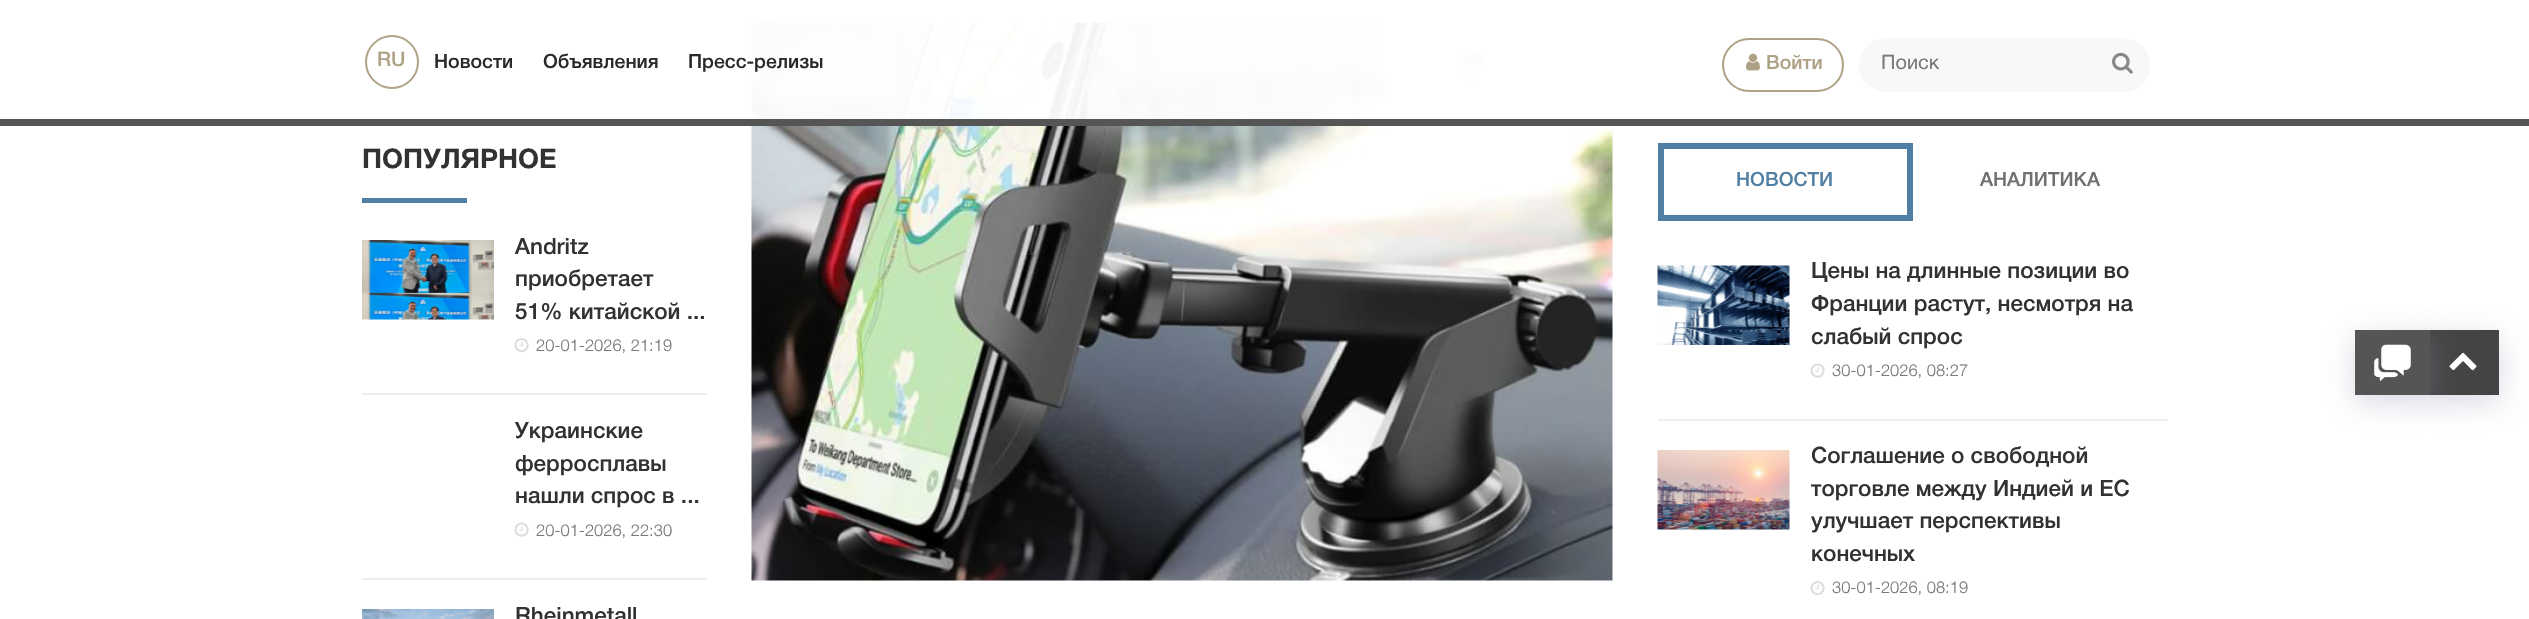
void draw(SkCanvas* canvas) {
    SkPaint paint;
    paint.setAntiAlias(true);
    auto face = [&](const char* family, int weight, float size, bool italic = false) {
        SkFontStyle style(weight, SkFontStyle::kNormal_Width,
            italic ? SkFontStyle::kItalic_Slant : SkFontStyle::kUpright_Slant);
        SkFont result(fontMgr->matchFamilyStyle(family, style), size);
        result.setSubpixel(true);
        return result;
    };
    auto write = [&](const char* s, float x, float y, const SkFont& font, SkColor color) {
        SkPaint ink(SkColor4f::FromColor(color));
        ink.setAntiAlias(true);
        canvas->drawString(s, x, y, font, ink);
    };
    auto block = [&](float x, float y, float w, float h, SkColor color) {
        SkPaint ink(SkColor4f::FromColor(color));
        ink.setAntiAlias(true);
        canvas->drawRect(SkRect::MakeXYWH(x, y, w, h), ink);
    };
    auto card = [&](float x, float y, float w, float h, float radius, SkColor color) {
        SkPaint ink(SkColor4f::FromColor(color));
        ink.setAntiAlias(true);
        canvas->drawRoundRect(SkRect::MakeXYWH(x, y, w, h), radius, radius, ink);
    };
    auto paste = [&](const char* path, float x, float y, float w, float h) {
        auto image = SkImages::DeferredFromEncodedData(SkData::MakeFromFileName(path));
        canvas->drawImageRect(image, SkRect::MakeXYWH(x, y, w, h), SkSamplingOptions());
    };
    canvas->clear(SK_ColorWHITE);
    paste("pic7.png", 751, 22, 862, 559);
    block(751, 22, 861, 97, SkColorSetARGB(242, 255, 255, 255));
    block(0, 119, 2529, 7, SkColorSetRGB(85, 85, 85));
    paint.setStyle(SkPaint::kStroke_Style);
    paint.setStrokeWidth(2);
    paint.setColor(SkColorSetRGB(175, 161, 133));
    canvas->drawCircle(392, 62, 26, paint);
    auto kFont1 = face("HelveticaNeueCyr", 500, 20);
    write("RU", 377, 66, kFont1, SkColorSetRGB(175, 161, 133));
    auto kFont2 = face("HelveticaNeueCyr", 500, 19.5f);
    write("Новости", 434, 68, kFont2, SkColorSetRGB(42, 42, 42));
    write("Объявления", 543, 68, kFont2, SkColorSetRGB(42, 42, 42));
    write("Пресс-релизы", 688, 68, kFont2, SkColorSetRGB(42, 42, 42));
    canvas->drawRoundRect(SkRect::MakeXYWH(1723, 39, 120, 52), 26, 26, paint);
    paste("pic1.png", 1746, 53, 14, 18);
    write("Войти", 1766, 69, kFont2, SkColorSetRGB(175, 161, 133));
    card(1859, 38, 291, 54, 27, SkColorSetRGB(248, 248, 248));
    auto kFont3 = face("HelveticaNeueCyr", 400, 20);
    write("Поиск", 1881, 69, kFont3, SkColorSetRGB(119, 119, 119));
    paste("pic2.png", 2112, 52, 21, 22);
    auto kFont4 = face("HelveticaNeueCyr", 700, 27);
    write("ПОПУЛЯРНОЕ", 362, 168, kFont4, SkColorSetRGB(51, 50, 50));
    block(362, 198, 105, 5, SkColorSetRGB(81, 127, 164));
    block(362, 393, 345, 2, SkColorSetRGB(238, 238, 238));
    paste("pic3.png", 362, 240, 132, 80);
    auto kFont5 = face("HelveticaNeueCyr", 500, 22.5f);
    write("Andritz", 515, 254, kFont5, SkColorSetRGB(51, 50, 50));
    write("приобретает", 515, 286, kFont5, SkColorSetRGB(51, 50, 50));
    write("51% китайской ...", 515, 319, kFont5, SkColorSetRGB(51, 50, 50));
    paste("pic4.png", 514, 338, 15, 15);
    auto kFont6 = face("HelveticaNeueCyr", 300, 16.5f);
    write("20-01-2026, 21:19", 536, 351, kFont6, SkColorSetRGB(119, 119, 119));
    block(362, 578, 345, 2, SkColorSetRGB(238, 238, 238));
    write("Украинские", 515, 438, kFont5, SkColorSetRGB(51, 50, 50));
    write("ферросплавы", 515, 471, kFont5, SkColorSetRGB(51, 50, 50));
    write("нашли спрос в ...", 515, 503, kFont5, SkColorSetRGB(51, 50, 50));
    paste("pic5.png", 514, 522, 15, 15);
    write("20-01-2026, 22:30", 536, 536, kFont6, SkColorSetRGB(119, 119, 119));
    paste("pic6.png", 362, 609, 132, 10);
    write("Rheinmetall", 515, 623, kFont5, SkColorSetRGB(51, 50, 50));
    paint.setStrokeWidth(6);
    paint.setColor(SkColorSetRGB(81, 127, 164));
    canvas->drawRect(SkRect::MakeXYWH(1661, 146, 249, 72), paint);
    write("НОВОСТИ", 1736, 186, kFont2, SkColorSetRGB(81, 127, 164));
    write("АНАЛИТИКА", 1980, 186, kFont2, SkColorSetRGB(112, 112, 112));
    block(1658, 419, 510, 2, SkColorSetRGB(238, 238, 238));
    paste("pic8.png", 1657, 265, 133, 80);
    write("Цены на длинные позиции во", 1811, 278, kFont5, SkColorSetRGB(51, 50, 50));
    write("Франции растут, несмотря на", 1811, 311, kFont5, SkColorSetRGB(51, 50, 50));
    write("слабый спрос", 1811, 344, kFont5, SkColorSetRGB(51, 50, 50));
    paste("pic5.png", 1810, 363, 15, 15);
    write("30-01-2026, 08:27", 1832, 376, kFont6, SkColorSetRGB(119, 119, 119));
    paste("pic9.png", 1657, 450, 133, 80);
    write("Соглашение о свободной", 1811, 463, kFont5, SkColorSetRGB(51, 50, 50));
    write("торговле между Индией и ЕС", 1811, 496, kFont5, SkColorSetRGB(51, 50, 50));
    write("улучшает перспективы", 1811, 528, kFont5, SkColorSetRGB(51, 50, 50));
    write("конечных", 1811, 561, kFont5, SkColorSetRGB(51, 50, 50));
    paste("pic4.png", 1810, 581, 15, 15);
    write("30-01-2026, 08:19", 1832, 593, kFont6, SkColorSetRGB(119, 119, 119));
    paint.setStyle(SkPaint::kFill_Style);
    paint.setColor(SkColorSetARGB(89, 141, 147, 171));
    paint.setMaskFilter(SkMaskFilter::MakeBlur(kNormal_SkBlurStyle, 15));
    canvas->drawRect(SkRect::MakeXYWH(2427, 338, 72, 64), paint);
    paint.setMaskFilter(nullptr);
    block(2430, 330, 69, 65, SkColorSetRGB(68, 68, 68));
    paste("pic11.png", 2449, 352, 28, 19);
    paint.setMaskFilter(SkMaskFilter::MakeBlur(kNormal_SkBlurStyle, 15));
    canvas->drawRect(SkRect::MakeXYWH(2355, 338, 75, 64), paint);
    paint.setMaskFilter(nullptr);
    block(2355, 330, 75, 65, SkColorSetRGB(85, 85, 85));
    paste("pic10.png", 2374, 344, 37, 38);
}
